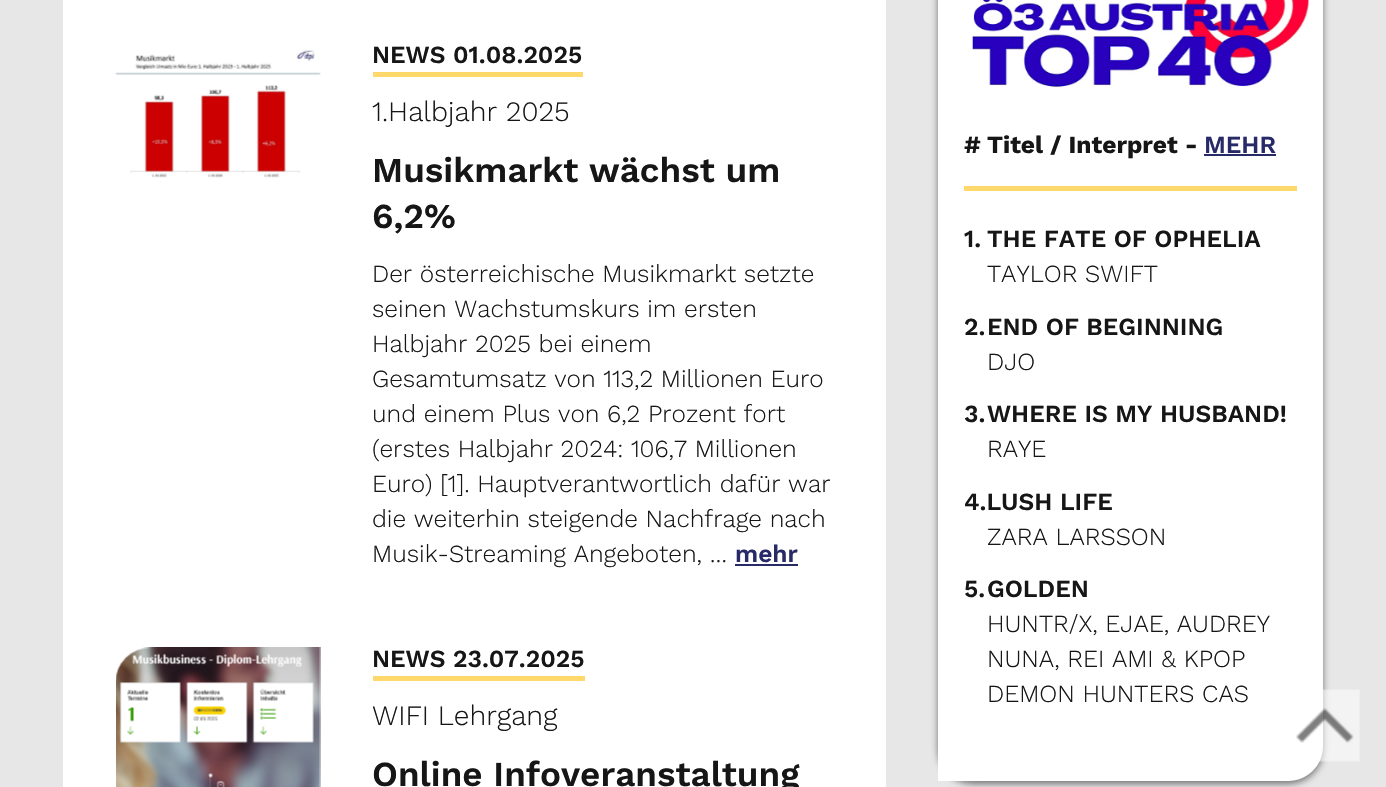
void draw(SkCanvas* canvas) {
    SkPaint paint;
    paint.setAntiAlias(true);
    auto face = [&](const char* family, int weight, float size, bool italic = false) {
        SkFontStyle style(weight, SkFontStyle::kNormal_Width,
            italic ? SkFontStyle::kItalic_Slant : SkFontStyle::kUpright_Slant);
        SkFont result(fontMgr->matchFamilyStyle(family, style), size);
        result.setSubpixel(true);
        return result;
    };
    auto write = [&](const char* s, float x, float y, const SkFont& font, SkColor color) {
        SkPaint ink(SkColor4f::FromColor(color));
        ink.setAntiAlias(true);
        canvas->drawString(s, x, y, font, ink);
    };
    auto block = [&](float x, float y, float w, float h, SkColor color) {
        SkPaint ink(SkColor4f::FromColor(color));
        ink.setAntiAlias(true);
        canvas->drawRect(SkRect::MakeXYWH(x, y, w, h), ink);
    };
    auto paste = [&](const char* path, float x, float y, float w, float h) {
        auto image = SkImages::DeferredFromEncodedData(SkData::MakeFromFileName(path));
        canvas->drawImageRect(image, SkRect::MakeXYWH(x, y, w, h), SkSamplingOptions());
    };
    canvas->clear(SK_ColorWHITE);
    {
        const SkColor colors[] = {SkColorSetRGB(192, 192, 192), SkColorSetRGB(231, 231, 231)};
        const float stops[] = {0, 0.59f};
        const SkPoint ends[] = {{-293, 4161}, {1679, -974}};
        paint.setShader(SkGradientShader::MakeLinear(ends, colors, stops, 2, SkTileMode::kClamp));
        paint.setAlpha(255);
    }
    canvas->drawRect(SkRect::MakeXYWH(0, 0, 1386, 787), paint);
    block(63, 0, 823, 787, SK_ColorWHITE);
    paste("pic1.png", 115, 49, 206, 129);
    block(373, 72, 210, 5, SkColorSetRGB(254, 216, 106));
    auto kFont1 = face("Work Sans", 600, 24.5f);
    write("NEWS 01.08.2025", 372, 63, kFont1, SkColorSetRGB(22, 22, 22));
    auto kFont2 = face("Work Sans", 300, 28);
    write("1.Halbjahr 2025", 372, 121, kFont2, SkColorSetRGB(22, 22, 22));
    auto kFont3 = face("Work Sans", 600, 35);
    write("Musikmarkt wächst um", 372, 182, kFont3, SkColorSetRGB(22, 22, 22));
    write("6,2%", 372, 228, kFont3, SkColorSetRGB(22, 22, 22));
    auto kFont4 = face("Work Sans", 300, 24.5f);
    write("Der österreichische Musikmarkt setzte", 372, 282, kFont4, SkColorSetRGB(22, 22, 22));
    write("seinen Wachstumskurs im ersten", 372, 317, kFont4, SkColorSetRGB(22, 22, 22));
    write("Halbjahr 2025 bei einem", 372, 352, kFont4, SkColorSetRGB(22, 22, 22));
    write("Gesamtumsatz von 113,2 Millionen Euro", 372, 387, kFont4, SkColorSetRGB(22, 22, 22));
    write("und einem Plus von 6,2 Prozent fort", 372, 422, kFont4, SkColorSetRGB(22, 22, 22));
    write("(erstes Halbjahr 2024: 106,7 Millionen", 372, 457, kFont4, SkColorSetRGB(22, 22, 22));
    write("Euro) [1]. Hauptverantwortlich dafür war", 372, 492, kFont4, SkColorSetRGB(22, 22, 22));
    write("die weiterhin steigende Nachfrage nach", 372, 527, kFont4, SkColorSetRGB(22, 22, 22));
    write("Musik-Streaming Angeboten, …", 372, 562, kFont4, SkColorSetRGB(22, 22, 22));
    write("mehr", 735, 562, kFont1, SkColorSetRGB(40, 42, 103));
    block(735, 564, 63, 2, SkColorSetRGB(40, 42, 103));
    paste("pic2.png", 116, 647, 205, 140);
    block(373, 676, 212, 5, SkColorSetRGB(254, 216, 106));
    write("NEWS 23.07.2025", 372, 667, kFont1, SkColorSetRGB(22, 22, 22));
    write("WIFI Lehrgang", 372, 725, kFont2, SkColorSetRGB(22, 22, 22));
    write("Online Infoveranstaltung", 372, 786, kFont3, SkColorSetRGB(22, 22, 22));
    paint.setShader(nullptr);
    paint.setColor(SkColorSetARGB(128, 0, 0, 0));
    paint.setMaskFilter(SkMaskFilter::MakeBlur(kNormal_SkBlurStyle, 3.5f));
    canvas->drawRoundRect(SkRect::MakeXYWH(938, -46, 385, 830), 35, 35, paint);
    paint.setMaskFilter(nullptr);
    paint.setColor(SK_ColorWHITE);
    canvas->drawPath(SkPathBuilder().moveTo(973, -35).lineTo(1323, -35).lineTo(1323, 746).cubicTo(1323, 765.5f, 1307.5f, 781, 1288, 781).lineTo(938, 781).lineTo(938, 0).cubicTo(938, -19.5f, 953.5f, -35, 973, -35).close().detach(), paint);
    paste("pic3.png", 972, 0, 337, 88);
    auto kFont5 = face("Work Sans", 700, 24.5f);
    write("#", 964, 153, kFont5, SkColorSetRGB(22, 22, 22));
    write("Titel / Interpret -", 987, 153, kFont5, SkColorSetRGB(22, 22, 22));
    write("MEHR", 1204, 153, kFont1, SkColorSetRGB(40, 42, 103));
    block(1204, 154, 72, 2, SkColorSetRGB(40, 42, 103));
    block(964, 186, 333, 5, SkColorSetRGB(254, 216, 106));
    write("1.", 964, 247, kFont1, SkColorSetRGB(22, 22, 22));
    write("THE FATE OF OPHELIA", 987, 247, kFont1, SkColorSetRGB(22, 22, 22));
    write("TAYLOR SWIFT", 987, 282, kFont4, SkColorSetRGB(22, 22, 22));
    write("2.", 964, 335, kFont1, SkColorSetRGB(22, 22, 22));
    write("END OF BEGINNING", 987, 335, kFont1, SkColorSetRGB(22, 22, 22));
    write("DJO", 987, 370, kFont4, SkColorSetRGB(22, 22, 22));
    write("3.", 964, 422, kFont1, SkColorSetRGB(22, 22, 22));
    write("WHERE IS MY HUSBAND!", 987, 422, kFont1, SkColorSetRGB(22, 22, 22));
    write("RAYE", 987, 457, kFont4, SkColorSetRGB(22, 22, 22));
    write("4.LUSH LIFE", 964, 510, kFont1, SkColorSetRGB(22, 22, 22));
    write("ZARA LARSSON", 987, 545, kFont4, SkColorSetRGB(22, 22, 22));
    write("5.", 964, 597, kFont1, SkColorSetRGB(22, 22, 22));
    write("GOLDEN", 987, 597, kFont1, SkColorSetRGB(22, 22, 22));
    write("HUNTR/X, EJAE, AUDREY", 987, 632, kFont4, SkColorSetRGB(22, 22, 22));
    write("NUNA, REI AMI & KPOP", 987, 667, kFont4, SkColorSetRGB(22, 22, 22));
    write("DEMON HUNTERS CAS", 987, 702, kFont4, SkColorSetRGB(22, 22, 22));
    paste("pic4.png", 1296, 689, 64, 73);
}
